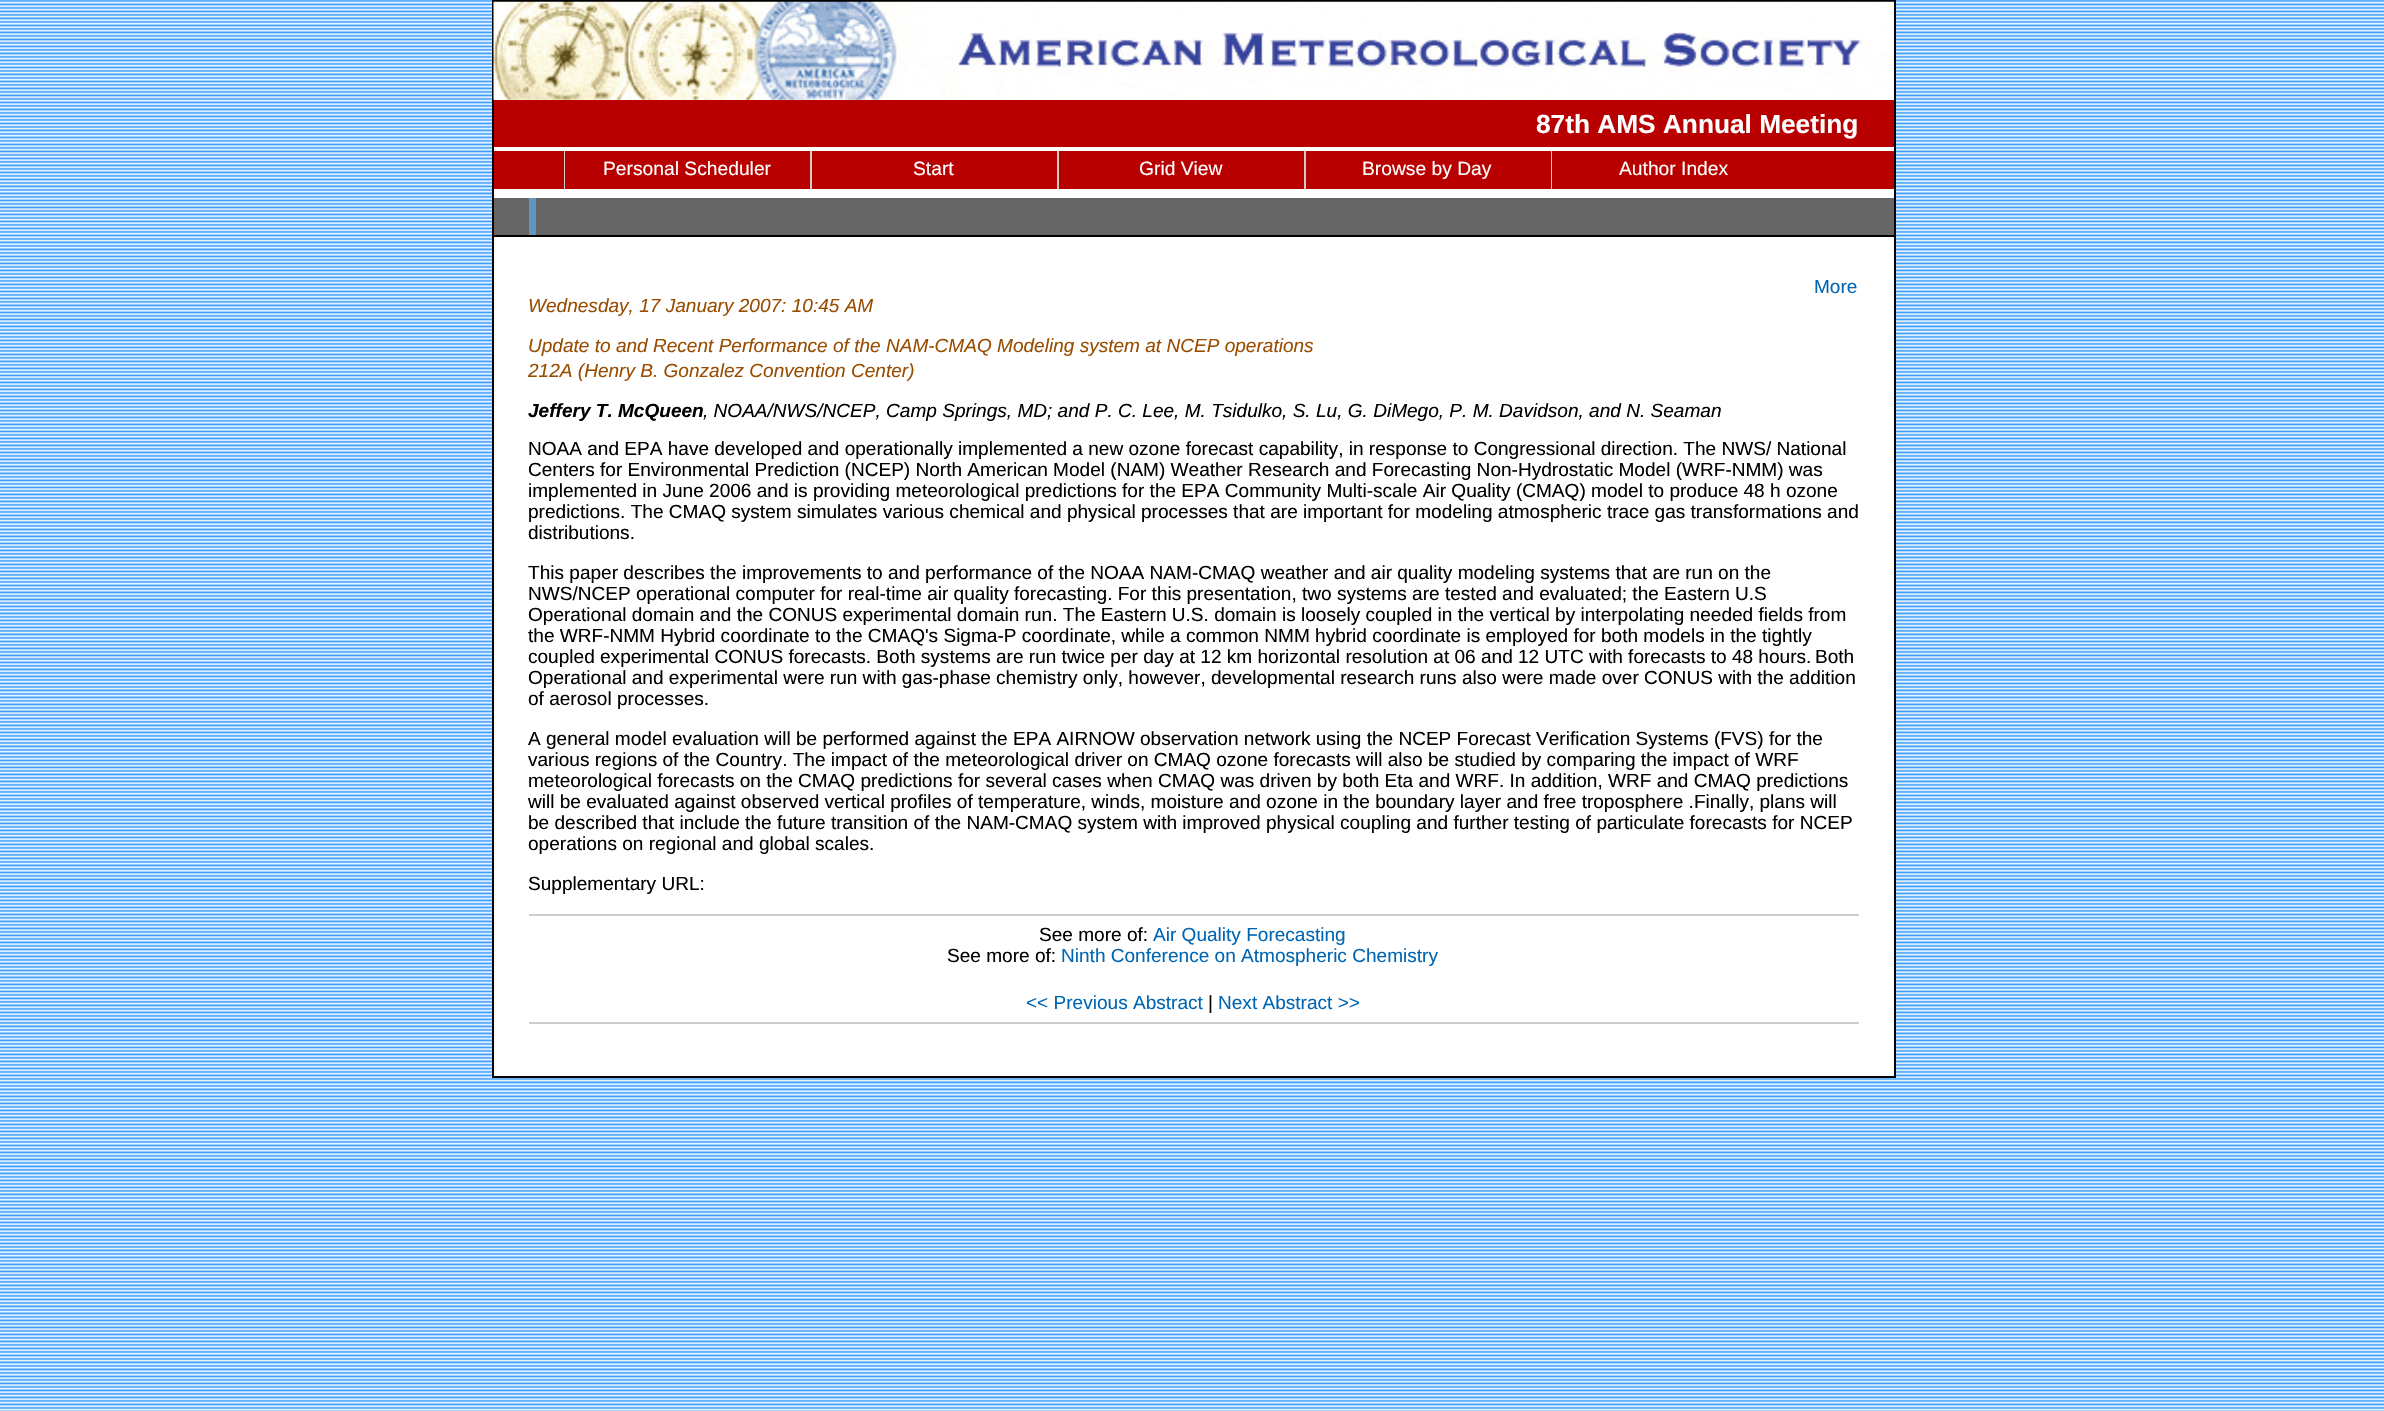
void draw(SkCanvas* canvas) {
    SkPaint paint;
    paint.setAntiAlias(true);
    auto face = [&](const char* family, int weight, float size, bool italic = false) {
        SkFontStyle style(weight, SkFontStyle::kNormal_Width,
            italic ? SkFontStyle::kItalic_Slant : SkFontStyle::kUpright_Slant);
        SkFont result(fontMgr->matchFamilyStyle(family, style), size);
        result.setSubpixel(true);
        return result;
    };
    auto write = [&](const char* s, float x, float y, const SkFont& font, SkColor color) {
        SkPaint ink(SkColor4f::FromColor(color));
        ink.setAntiAlias(true);
        canvas->drawString(s, x, y, font, ink);
    };
    auto block = [&](float x, float y, float w, float h, SkColor color) {
        SkPaint ink(SkColor4f::FromColor(color));
        ink.setAntiAlias(true);
        canvas->drawRect(SkRect::MakeXYWH(x, y, w, h), ink);
    };
    auto paste = [&](const char* path, float x, float y, float w, float h) {
        auto image = SkImages::DeferredFromEncodedData(SkData::MakeFromFileName(path));
        canvas->drawImageRect(image, SkRect::MakeXYWH(x, y, w, h), SkSamplingOptions());
    };
    canvas->clear(SK_ColorWHITE);
    paste("pic1.png", 0, 0, 2384, 1411);
    block(494, 2, 1400, 1074, SK_ColorWHITE);
    block(1894, 0, 2, 1078, SK_ColorBLACK);
    block(492, 1076, 1403, 2, SK_ColorBLACK);
    block(492, 0, 2, 1078, SK_ColorBLACK);
    block(494, 0, 1400, 2, SK_ColorBLACK);
    paste("pic2.png", 493, 1, 1401, 99);
    block(494, 100, 1400, 47, SkColorSetRGB(185, 0, 0));
    auto kFont1 = face("Liberation Sans", 700, 26.25f);
    write("87th AMS Annual Meeting", 1536, 133, kFont1, SK_ColorWHITE);
    block(494, 151, 1400, 38, SkColorSetRGB(185, 0, 0));
    block(564, 151, 1, 38, SkColorSetRGB(204, 204, 204));
    auto kFont2 = face("Liberation Sans", 400, 19.25f);
    write("Personal Scheduler", 603, 175, kFont2, SK_ColorWHITE);
    block(810, 151, 2, 38, SkColorSetRGB(204, 204, 204));
    write("Start", 913, 175, kFont2, SK_ColorWHITE);
    block(1057, 151, 2, 38, SkColorSetRGB(204, 204, 204));
    write("Grid View", 1139, 175, kFont2, SK_ColorWHITE);
    block(1304, 151, 2, 38, SkColorSetRGB(204, 204, 204));
    write("Browse by Day", 1362, 175, kFont2, SK_ColorWHITE);
    block(1551, 151, 1, 38, SkColorSetRGB(204, 204, 204));
    write("Author Index", 1619, 175, kFont2, SK_ColorWHITE);
    block(494, 198, 1400, 37, SkColorSetRGB(102, 102, 102));
    block(494, 235, 1400, 2, SK_ColorBLACK);
    block(529, 198, 7, 37, SkColorSetRGB(96, 150, 191));
    auto kFont3 = face("Liberation Sans", 400, 19.05f);
    write("More", 1814, 293, kFont3, SkColorSetRGB(0, 102, 179));
    auto kFont4 = face("Liberation Sans", 400, 19.05f, true);
    write("Wednesday, 17 January 2007: 10:45 AM", 528, 312, kFont4, SkColorSetRGB(153, 77, 0));
    write("Update to and Recent Performance of the NAM-CMAQ Modeling system at NCEP operations", 528, 352, kFont4, SkColorSetRGB(153, 77, 0));
    write("212A (Henry B. Gonzalez Convention Center)", 528, 377, kFont4, SkColorSetRGB(153, 77, 0));
    auto kFont5 = face("Liberation Sans", 700, 19.05f, true);
    write("Jeffery T. McQueen", 528, 417, kFont5, SK_ColorBLACK);
    write(", NOAA/NWS/NCEP, Camp Springs, MD; and P. C. Lee, M. Tsidulko, S. Lu, G. DiMego, P. M. Davidson, and N. Seaman", 703, 417, kFont4, SK_ColorBLACK);
    write("NOAA and EPA have developed and operationally implemented a new ozone forecast capability, in response to Congressional direction. The NWS/ National", 528, 455, kFont3, SK_ColorBLACK);
    write("Centers for Environmental Prediction (NCEP) North American Model (NAM) Weather Research and Forecasting Non-Hydrostatic Model (WRF-NMM) was", 528, 476, kFont3, SK_ColorBLACK);
    write("implemented in June 2006 and is providing meteorological predictions for the EPA Community Multi-scale Air Quality (CMAQ) model to produce 48 h ozone", 528, 497, kFont3, SK_ColorBLACK);
    write("predictions. The CMAQ system simulates various chemical and physical processes that are important for modeling atmospheric trace gas transformations and", 528, 518, kFont3, SK_ColorBLACK);
    write("distributions.", 528, 539, kFont3, SK_ColorBLACK);
    write("This paper describes the improvements to and performance of the NOAA NAM-CMAQ weather and air quality modeling systems that are run on the", 528, 579, kFont3, SK_ColorBLACK);
    write("NWS/NCEP operational computer for real-time air quality forecasting. For this presentation, two systems are tested and evaluated; the Eastern U.S", 528, 600, kFont3, SK_ColorBLACK);
    write("Operational domain and the CONUS experimental domain run. The Eastern U.S. domain is loosely coupled in the vertical by interpolating needed fields from", 528, 621, kFont3, SK_ColorBLACK);
    write("the WRF-NMM Hybrid coordinate to the CMAQ's Sigma-P coordinate, while a common NMM hybrid coordinate is employed for both models in the tightly", 528, 642, kFont3, SK_ColorBLACK);
    write("coupled experimental CONUS forecasts. Both systems are run twice per day at 12 km horizontal resolution at 06 and 12 UTC with forecasts to 48 hours.", 528, 663, kFont3, SK_ColorBLACK);
    write("Both", 1815, 663, kFont3, SK_ColorBLACK);
    write("Operational and experimental were run with gas-phase chemistry only, however, developmental research runs also were made over CONUS with the addition", 528, 684, kFont3, SK_ColorBLACK);
    write("of aerosol processes.", 528, 705, kFont3, SK_ColorBLACK);
    write("A general model evaluation will be performed against the EPA AIRNOW observation network using the NCEP Forecast Verification Systems (FVS) for the", 528, 745, kFont3, SK_ColorBLACK);
    write("various regions of the Country. The impact of the meteorological driver on CMAQ ozone forecasts will also be studied by comparing the impact of WRF", 528, 766, kFont3, SK_ColorBLACK);
    write("meteorological forecasts on the CMAQ predictions for several cases when CMAQ was driven by both Eta and WRF. In addition, WRF and CMAQ predictions", 528, 787, kFont3, SK_ColorBLACK);
    write("will be evaluated against observed vertical profiles of temperature, winds, moisture and ozone in the boundary layer and free troposphere .Finally, plans will", 528, 808, kFont3, SK_ColorBLACK);
    write("be described that include the future transition of the NAM-CMAQ system with improved physical coupling and further testing of particulate forecasts for NCEP", 528, 829, kFont3, SK_ColorBLACK);
    write("operations on regional and global scales.", 528, 850, kFont3, SK_ColorBLACK);
    write("Supplementary URL:", 528, 890, kFont3, SK_ColorBLACK);
    block(529, 914, 1330, 2, SkColorSetRGB(204, 204, 204));
    write("See more of:", 1039, 941, kFont3, SK_ColorBLACK);
    write("Air Quality Forecasting", 1153, 941, kFont3, SkColorSetRGB(0, 102, 179));
    write("See more of:", 947, 962, kFont3, SK_ColorBLACK);
    write("Ninth Conference on Atmospheric Chemistry", 1061, 962, kFont3, SkColorSetRGB(0, 102, 179));
    block(529, 1022, 1330, 2, SkColorSetRGB(204, 204, 204));
    write("<< Previous Abstract", 1026, 1009, kFont3, SkColorSetRGB(0, 102, 179));
    write("|", 1208, 1009, kFont3, SK_ColorBLACK);
    write("Next Abstract >>", 1218, 1009, kFont3, SkColorSetRGB(0, 102, 179));
}
